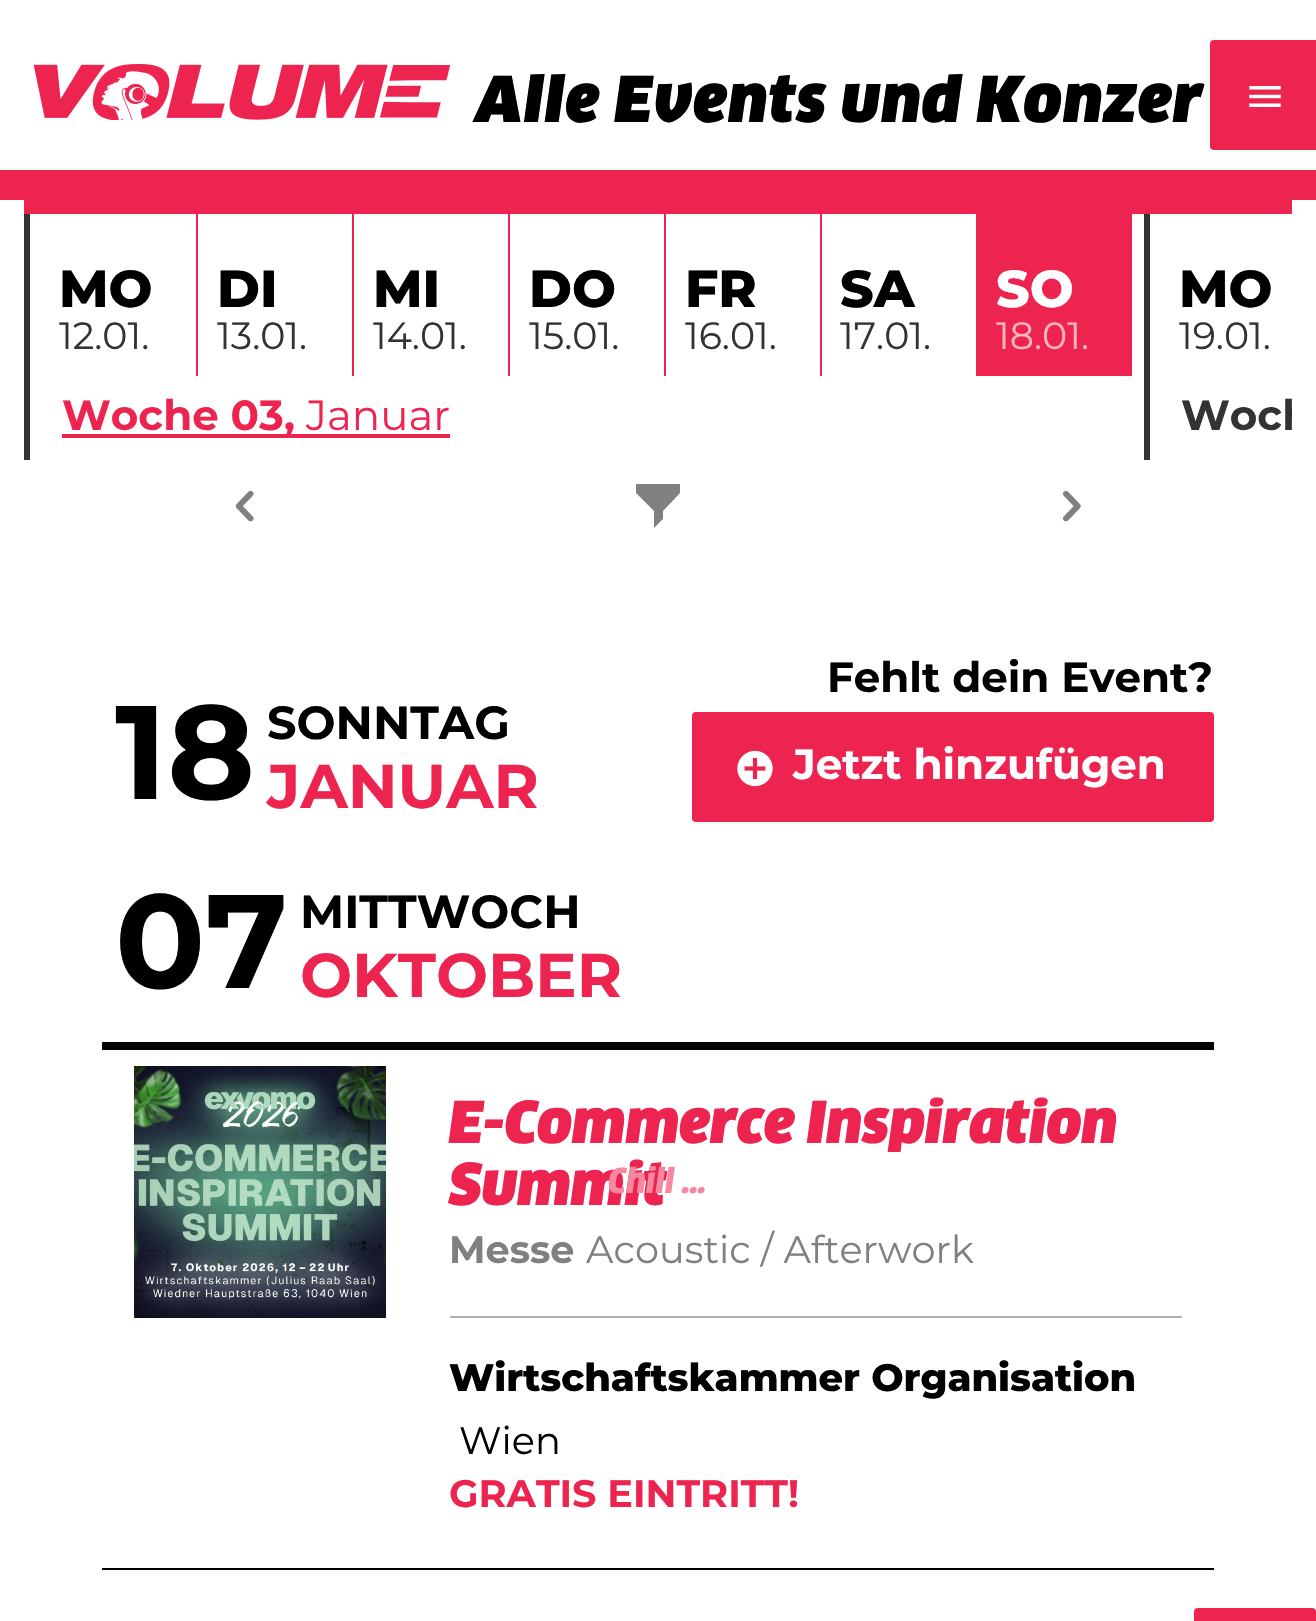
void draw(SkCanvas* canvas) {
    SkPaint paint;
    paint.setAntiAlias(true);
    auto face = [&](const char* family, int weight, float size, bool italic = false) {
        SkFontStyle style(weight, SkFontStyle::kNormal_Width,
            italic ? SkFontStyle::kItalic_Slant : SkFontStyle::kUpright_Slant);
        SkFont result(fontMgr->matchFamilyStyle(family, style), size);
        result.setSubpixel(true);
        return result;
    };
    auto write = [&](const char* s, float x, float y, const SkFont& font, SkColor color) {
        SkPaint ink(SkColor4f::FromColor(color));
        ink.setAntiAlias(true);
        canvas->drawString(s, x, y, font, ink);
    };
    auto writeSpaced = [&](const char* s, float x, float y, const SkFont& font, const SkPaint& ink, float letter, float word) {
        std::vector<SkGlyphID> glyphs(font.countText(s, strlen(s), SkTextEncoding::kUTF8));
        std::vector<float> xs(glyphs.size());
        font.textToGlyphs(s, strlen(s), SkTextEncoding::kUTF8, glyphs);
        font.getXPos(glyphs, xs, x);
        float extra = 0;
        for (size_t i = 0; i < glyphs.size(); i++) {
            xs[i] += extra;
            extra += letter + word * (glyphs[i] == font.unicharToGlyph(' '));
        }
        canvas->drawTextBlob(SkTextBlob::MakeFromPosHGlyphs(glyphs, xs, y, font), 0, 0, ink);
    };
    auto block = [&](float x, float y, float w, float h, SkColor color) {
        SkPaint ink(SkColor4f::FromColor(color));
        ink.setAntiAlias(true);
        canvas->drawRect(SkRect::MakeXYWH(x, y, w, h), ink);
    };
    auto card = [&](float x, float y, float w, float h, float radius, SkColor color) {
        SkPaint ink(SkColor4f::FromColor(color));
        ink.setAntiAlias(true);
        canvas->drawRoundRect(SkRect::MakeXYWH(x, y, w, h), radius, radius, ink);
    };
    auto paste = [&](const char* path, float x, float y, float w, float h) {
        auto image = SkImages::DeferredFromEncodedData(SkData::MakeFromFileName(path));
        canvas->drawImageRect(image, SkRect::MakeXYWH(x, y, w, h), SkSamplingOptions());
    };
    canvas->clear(SK_ColorWHITE);
    block(0, 170, 1316, 30, SkColorSetRGB(237, 36, 80));
    paste("pic1.png", 33, 64, 418, 56);
    auto kFont1 = face("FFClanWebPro", 400, 61.75f);
    paint.setColor(SK_ColorBLACK);
    writeSpaced("Alle Events und Konzer", 476, 122, kFont1, paint, 1.25f, 0);
    card(1210, 40, 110, 110, 4, SkColorSetRGB(237, 36, 80));
    paste("pic2.png", 1249, 86, 32, 21);
    block(24, 200, 1268, 14, SkColorSetRGB(237, 36, 80));
    block(24, 214, 6, 246, SkColorSetRGB(51, 51, 51));
    auto kFont2 = face("Montserrat", 800, 52);
    write("MO", 59, 307, kFont2, SK_ColorBLACK);
    auto kFont3 = face("Montserrat", 400, 38);
    write("12.01.", 59, 349, kFont3, SkColorSetRGB(51, 51, 51));
    block(196, 214, 2, 162, SkColorSetRGB(237, 36, 80));
    write("DI", 217, 307, kFont2, SK_ColorBLACK);
    write("13.01.", 217, 349, kFont3, SkColorSetRGB(51, 51, 51));
    block(352, 214, 2, 162, SkColorSetRGB(237, 36, 80));
    write("MI", 373, 307, kFont2, SK_ColorBLACK);
    write("14.01.", 373, 349, kFont3, SkColorSetRGB(51, 51, 51));
    block(508, 214, 2, 162, SkColorSetRGB(237, 36, 80));
    write("DO", 529, 307, kFont2, SK_ColorBLACK);
    write("15.01.", 529, 349, kFont3, SkColorSetRGB(51, 51, 51));
    block(664, 214, 2, 162, SkColorSetRGB(237, 36, 80));
    write("FR", 685, 307, kFont2, SK_ColorBLACK);
    write("16.01.", 685, 349, kFont3, SkColorSetRGB(51, 51, 51));
    block(820, 214, 2, 162, SkColorSetRGB(237, 36, 80));
    write("SA", 840, 307, kFont2, SK_ColorBLACK);
    write("17.01.", 840, 349, kFont3, SkColorSetRGB(51, 51, 51));
    block(976, 214, 156, 162, SkColorSetRGB(237, 36, 80));
    write("SO", 996, 307, kFont2, SK_ColorWHITE);
    write("18.01.", 996, 349, kFont3, SkColorSetRGB(255, 182, 189));
    block(62, 434, 388, 4, SkColorSetRGB(237, 36, 80));
    auto kFont4 = face("Montserrat", 700, 42);
    write("Woche 03,", 62, 430, kFont4, SkColorSetRGB(237, 36, 80));
    auto kFont5 = face("Montserrat", 400, 42);
    write("Januar", 306, 430, kFont5, SkColorSetRGB(237, 36, 80));
    block(1144, 214, 6, 246, SkColorSetRGB(51, 51, 51));
    write("MO", 1179, 307, kFont2, SK_ColorBLACK);
    write("19.01.", 1179, 349, kFont3, SkColorSetRGB(51, 51, 51));
    canvas->save();
    canvas->clipRect(SkRect::MakeXYWH(24, 214, 1268, 246));
    write("Woch", 1181, 430, kFont4, SkColorSetRGB(51, 51, 51));
    canvas->restore();
    auto kFont6 = face("Montserrat", 700, 133);
    write("18", 115, 799, kFont6, SK_ColorBLACK);
    auto kFont7 = face("Montserrat", 700, 46.25f);
    write("SONNTAG", 267, 739, kFont7, SK_ColorBLACK);
    auto kFont8 = face("Montserrat", 700, 61.75f);
    write("JANUAR", 267, 808, kFont8, SkColorSetRGB(237, 36, 80));
    write("Fehlt dein Event?", 827, 692, kFont4, SK_ColorBLACK);
    card(692, 712, 522, 110, 4, SkColorSetRGB(237, 36, 80));
    paste("pic3.png", 737, 750, 36, 37);
    write("Jetzt hinzufügen", 793, 779, kFont4, SK_ColorWHITE);
    write("07", 115, 988, kFont6, SK_ColorBLACK);
    write("MITTWOCH", 300, 928, kFont7, SK_ColorBLACK);
    write("OKTOBER", 300, 997, kFont8, SkColorSetRGB(237, 36, 80));
    block(102, 1042, 1112, 8, SK_ColorBLACK);
    block(102, 1568, 1112, 2, SK_ColorBLACK);
    paste("pic4.png", 134, 1066, 252, 252);
    auto kFont9 = face("FFClanWebPro", 400, 56.25f);
    write("E-Commerce Inspiration", 449, 1143, kFont9, SkColorSetRGB(237, 36, 80));
    write("Summit", 449, 1205, kFont9, SkColorSetRGB(237, 36, 80));
    auto kFont10 = face("Montserrat", 700, 38.25f);
    write("Messe", 449, 1263, kFont10, SkColorSetRGB(128, 128, 128));
    auto kFont11 = face("Montserrat", 400, 38.25f);
    write("Acoustic / Afterwork", 586, 1263, kFont11, SkColorSetRGB(128, 128, 128));
    block(450, 1316, 732, 2, SkColorSetRGB(179, 179, 179));
    auto kFont12 = face("Montserrat", 800, 38.25f);
    write("Wirtschaftskammer Organisation", 449, 1391, kFont12, SK_ColorBLACK);
    write("Wien", 459, 1454, kFont11, SK_ColorBLACK);
    write("GRATIS EINTRITT!", 449, 1507, kFont10, SkColorSetRGB(237, 36, 80));
    paste("pic5.png", 235, 490, 19, 32);
    paint.setColor(SkColorSetRGB(128, 128, 128));
    canvas->drawPath(SkPathBuilder().moveTo(663, 511).lineTo(680, 493).lineTo(680, 484).lineTo(636, 484).lineTo(636, 493).lineTo(654, 511).lineTo(654, 528).lineTo(663, 519).close().detach(), paint);
    paste("pic6.png", 1062, 491, 19, 31);
    auto kFont13 = face("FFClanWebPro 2", 400, 33.5f);
    write("Chill …", 608, 1193, kFont13, SkColorSetRGB(245, 135, 159));
    card(1194, 1608, 122, 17, 4, SkColorSetRGB(237, 36, 80));
}
